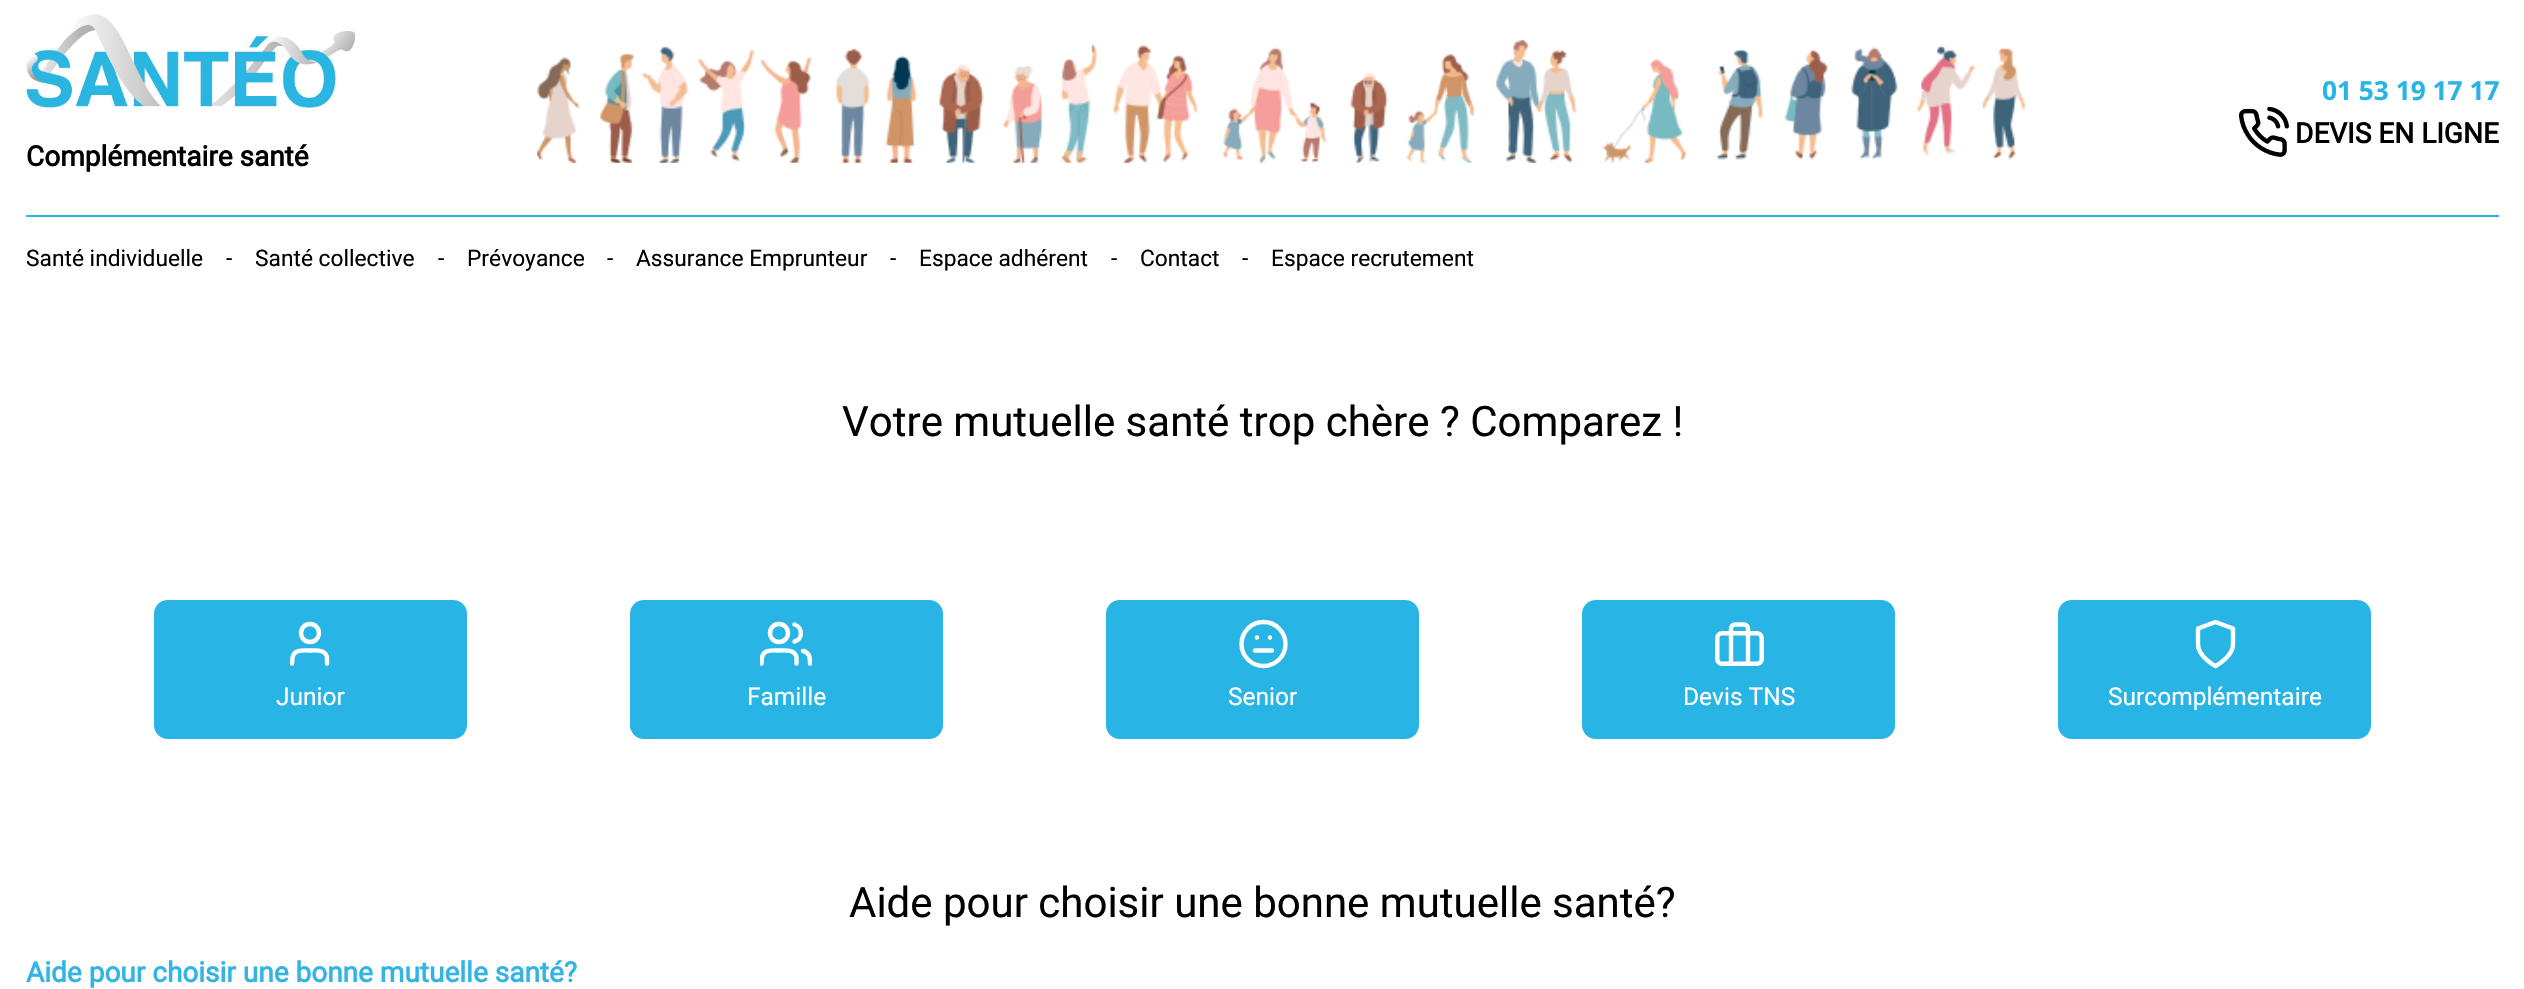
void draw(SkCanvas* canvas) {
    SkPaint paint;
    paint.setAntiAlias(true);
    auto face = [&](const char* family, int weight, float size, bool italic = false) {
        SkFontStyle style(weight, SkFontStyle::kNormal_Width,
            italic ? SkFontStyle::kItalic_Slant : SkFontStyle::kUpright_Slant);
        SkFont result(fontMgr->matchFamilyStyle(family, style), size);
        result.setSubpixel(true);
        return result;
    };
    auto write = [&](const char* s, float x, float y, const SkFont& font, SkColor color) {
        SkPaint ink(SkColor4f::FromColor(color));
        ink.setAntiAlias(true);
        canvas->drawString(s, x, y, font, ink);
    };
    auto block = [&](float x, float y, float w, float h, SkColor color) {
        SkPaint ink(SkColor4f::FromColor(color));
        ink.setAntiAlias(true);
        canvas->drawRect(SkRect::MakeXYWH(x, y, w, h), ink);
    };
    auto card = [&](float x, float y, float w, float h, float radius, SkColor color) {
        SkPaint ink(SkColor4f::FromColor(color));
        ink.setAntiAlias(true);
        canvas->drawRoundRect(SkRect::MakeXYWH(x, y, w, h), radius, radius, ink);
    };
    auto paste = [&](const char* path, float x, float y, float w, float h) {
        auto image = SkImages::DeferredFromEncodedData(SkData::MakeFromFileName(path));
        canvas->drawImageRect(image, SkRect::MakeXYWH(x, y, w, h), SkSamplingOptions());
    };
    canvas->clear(SK_ColorWHITE);
    block(26, 215, 2473, 2, SkColorSetRGB(40, 180, 228));
    paste("pic1.png", 537, 40, 1488, 123);
    auto kFont1 = face("Noto Sans", 700, 26.25f);
    write("01 53 19 17 17", 2322, 100, kFont1, SkColorSetRGB(40, 180, 228));
    paste("pic2.png", 2238, 107, 51, 50);
    auto kFont2 = face("Roboto", 700, 28);
    write("DEVIS EN LIGNE", 2295, 143, kFont2, SK_ColorBLACK);
    paste("pic3.png", 26, 14, 330, 94);
    write("Complémentaire santé", 26, 166, kFont2, SK_ColorBLACK);
    auto kFont3 = face("Roboto", 400, 22.75f);
    write("Santé individuelle", 26, 266, kFont3, SK_ColorBLACK);
    write("-", 226, 266, kFont3, SK_ColorBLACK);
    write("Santé collective", 255, 266, kFont3, SK_ColorBLACK);
    write("-", 438, 266, kFont3, SK_ColorBLACK);
    write("Prévoyance", 467, 266, kFont3, SK_ColorBLACK);
    write("-", 607, 266, kFont3, SK_ColorBLACK);
    write("Assurance Emprunteur", 636, 266, kFont3, SK_ColorBLACK);
    write("-", 890, 266, kFont3, SK_ColorBLACK);
    write("Espace adhérent", 919, 266, kFont3, SK_ColorBLACK);
    write("-", 1111, 266, kFont3, SK_ColorBLACK);
    write("Contact", 1140, 266, kFont3, SK_ColorBLACK);
    write("-", 1242, 266, kFont3, SK_ColorBLACK);
    write("Espace recrutement", 1271, 266, kFont3, SK_ColorBLACK);
    auto kFont4 = face("Roboto", 400, 42);
    write("Votre mutuelle santé trop chère ? Comparez !", 842, 436, kFont4, SK_ColorBLACK);
    card(154, 600, 313, 139, 14, SkColorSetRGB(40, 180, 228));
    paint.setStyle(SkPaint::kStroke_Style);
    paint.setStrokeWidth(4.4f);
    paint.setStrokeCap(SkPaint::kRound_Cap);
    paint.setStrokeJoin(SkPaint::kRound_Join);
    paint.setColor(SK_ColorWHITE);
    canvas->drawPath(SkPathBuilder().moveTo(327, 663.5f).lineTo(327, 657.5f).cubicTo(325.5f, 649, 316, 650.5f, 310, 650.5f).cubicTo(303.5f, 650.5f, 294, 649, 292.5f, 657.5f).lineTo(292, 663.5f).detach(), paint);
    paint.setStrokeCap(SkPaint::kButt_Cap);
    paint.setStrokeJoin(SkPaint::kMiter_Join);
    canvas->drawCircle(310, 633, 9, paint);
    auto kFont5 = face("Roboto", 400, 24.5f);
    write("Junior", 276, 705, kFont5, SK_ColorWHITE);
    card(630, 600, 313, 139, 14, SkColorSetRGB(40, 180, 228));
    canvas->save();
    canvas->clipRect(SkRect::MakeXYWH(760, 618, 52, 52));
    paint.setStrokeCap(SkPaint::kRound_Cap);
    paint.setStrokeJoin(SkPaint::kRound_Join);
    canvas->drawPath(SkPathBuilder().moveTo(796.5f, 663.5f).lineTo(796.5f, 657.5f).cubicTo(795, 649, 785.5f, 650.5f, 779, 650.5f).cubicTo(773, 650.5f, 763.5f, 649, 762, 657.5f).lineTo(761.5f, 663.5f).detach(), paint);
    canvas->restore();
    paint.setStrokeCap(SkPaint::kButt_Cap);
    paint.setStrokeJoin(SkPaint::kMiter_Join);
    canvas->drawCircle(779, 633, 9, paint);
    canvas->save();
    canvas->clipRect(SkRect::MakeXYWH(760, 618, 52, 52));
    paint.setStrokeCap(SkPaint::kRound_Cap);
    paint.setStrokeJoin(SkPaint::kRound_Join);
    canvas->drawPath(SkPathBuilder().moveTo(810, 663.5f).cubicTo(810, 658, 810, 652.5f, 803, 651).detach(), paint);
    canvas->restore();
    canvas->drawPath(SkPathBuilder().moveTo(794.5f, 624.5f).cubicTo(803, 627, 803, 639.5f, 794.5f, 641.5f).detach(), paint);
    write("Famille", 747, 705, kFont5, SK_ColorWHITE);
    card(1106, 600, 313, 139, 14, SkColorSetRGB(40, 180, 228));
    paint.setStrokeCap(SkPaint::kButt_Cap);
    paint.setStrokeJoin(SkPaint::kMiter_Join);
    canvas->drawCircle(1263.5f, 644, 22, paint);
    paint.setStrokeCap(SkPaint::kRound_Cap);
    paint.setStrokeJoin(SkPaint::kRound_Join);
    canvas->drawPath(SkPathBuilder().moveTo(1255, 650.5f).lineTo(1272, 650.5f).moveTo(1257, 637.5f).lineTo(1257, 637.5f).moveTo(1270, 637.5f).lineTo(1270, 637.5f).detach(), paint);
    write("Senior", 1228, 705, kFont5, SK_ColorWHITE);
    card(1582, 600, 313, 139, 14, SkColorSetRGB(40, 180, 228));
    paint.setStrokeWidth(4.5f);
    paint.setStrokeCap(SkPaint::kButt_Cap);
    paint.setStrokeJoin(SkPaint::kMiter_Join);
    canvas->drawRoundRect(SkRect::MakeXYWH(1717.25f, 633.25f, 44.5f, 30.5f), 4.75f, 4.75f, paint);
    paint.setStrokeWidth(4.4f);
    paint.setStrokeCap(SkPaint::kRound_Cap);
    paint.setStrokeJoin(SkPaint::kRound_Join);
    canvas->drawPath(SkPathBuilder().moveTo(1748, 663.5f).lineTo(1748, 628.5f).cubicTo(1748, 626.5f, 1746.5f, 624.5f, 1744, 624.5f).lineTo(1735, 624.5f).cubicTo(1732.5f, 624.5f, 1731, 626.5f, 1731, 628.5f).lineTo(1731, 663.5f).detach(), paint);
    write("Devis TNS", 1683, 705, kFont5, SK_ColorWHITE);
    card(2058, 600, 313, 139, 14, SkColorSetRGB(40, 180, 228));
    canvas->drawPath(SkPathBuilder().moveTo(2215.5f, 666).cubicTo(2215.5f, 666, 2233, 657, 2233, 644).lineTo(2233, 628.5f).lineTo(2215.5f, 622).lineTo(2198, 628.5f).lineTo(2198, 644).cubicTo(2198, 657, 2215.5f, 666, 2215.5f, 666).close().detach(), paint);
    write("Surcomplémentaire", 2108, 705, kFont5, SK_ColorWHITE);
    write("Aide pour choisir une bonne mutuelle santé?", 849, 917, kFont4, SK_ColorBLACK);
    write("Aide pour choisir une bonne mutuelle santé?", 26, 982, kFont2, SkColorSetRGB(52, 180, 228));
}
